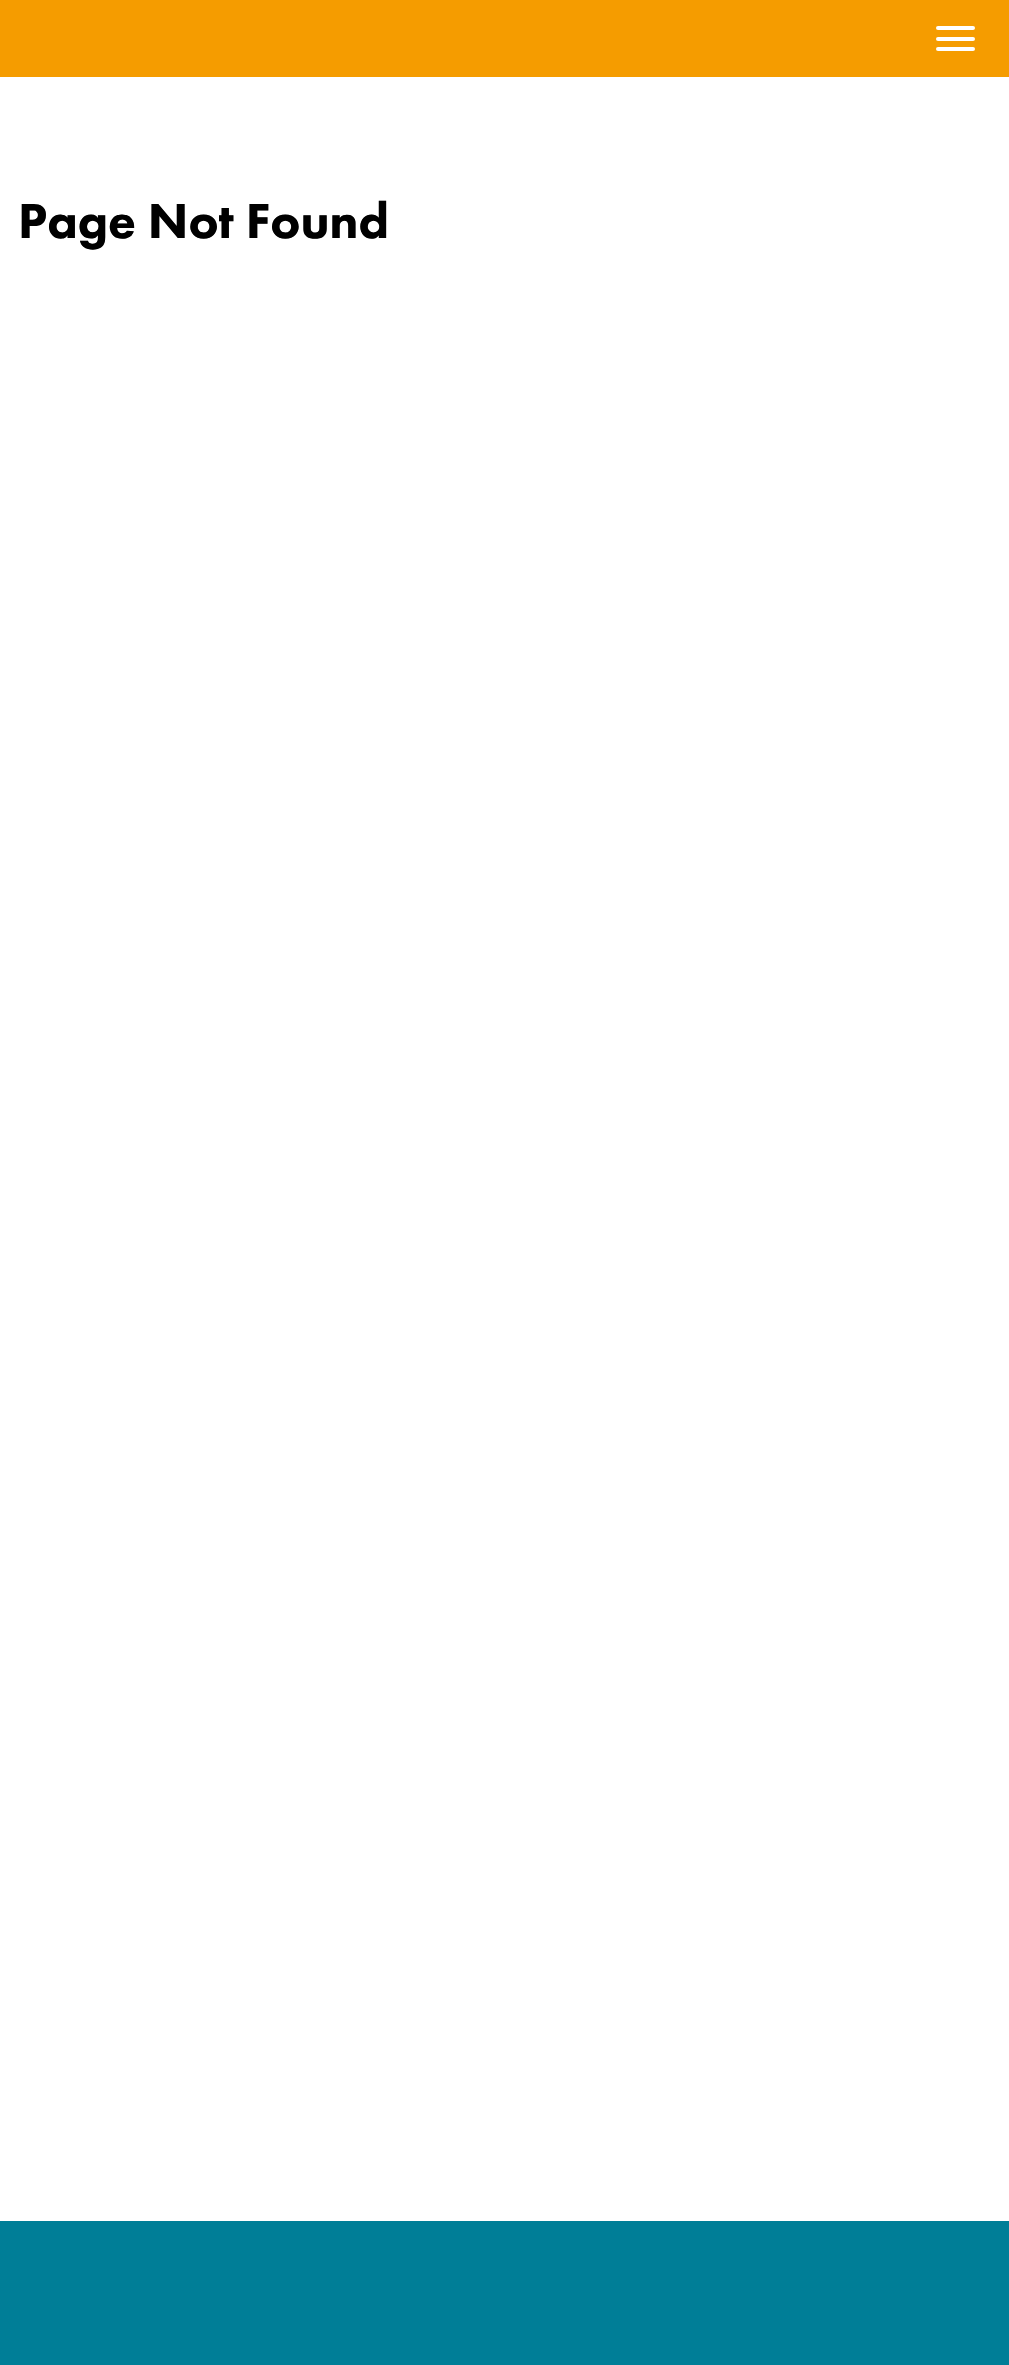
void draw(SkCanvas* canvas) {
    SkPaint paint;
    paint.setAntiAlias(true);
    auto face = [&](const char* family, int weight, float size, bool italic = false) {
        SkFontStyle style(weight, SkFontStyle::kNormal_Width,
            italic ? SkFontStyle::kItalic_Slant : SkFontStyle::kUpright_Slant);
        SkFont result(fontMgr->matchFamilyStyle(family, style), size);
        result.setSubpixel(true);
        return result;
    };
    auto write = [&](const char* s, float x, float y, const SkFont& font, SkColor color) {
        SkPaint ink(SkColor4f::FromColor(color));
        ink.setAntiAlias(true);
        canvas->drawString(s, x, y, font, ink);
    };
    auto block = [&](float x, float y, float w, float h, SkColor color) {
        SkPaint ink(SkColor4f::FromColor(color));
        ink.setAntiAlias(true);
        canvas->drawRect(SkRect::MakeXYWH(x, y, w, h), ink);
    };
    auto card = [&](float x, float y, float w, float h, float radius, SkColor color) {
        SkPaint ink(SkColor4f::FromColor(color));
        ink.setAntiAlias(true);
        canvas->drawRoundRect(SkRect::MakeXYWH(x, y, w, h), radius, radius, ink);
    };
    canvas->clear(SK_ColorWHITE);
    block(0, 0, 1009, 77, SkColorSetRGB(245, 156, 0));
    card(936, 26, 39, 4, 2, SK_ColorWHITE);
    card(936, 37, 39, 4, 2, SK_ColorWHITE);
    card(936, 47, 39, 4, 2, SK_ColorWHITE);
    auto kFont1 = face("Futura PT", 900, 51);
    write("Page Not Found", 18, 238, kFont1, SK_ColorBLACK);
    block(0, 2221, 1009, 144, SkColorSetRGB(0, 126, 151));
}
